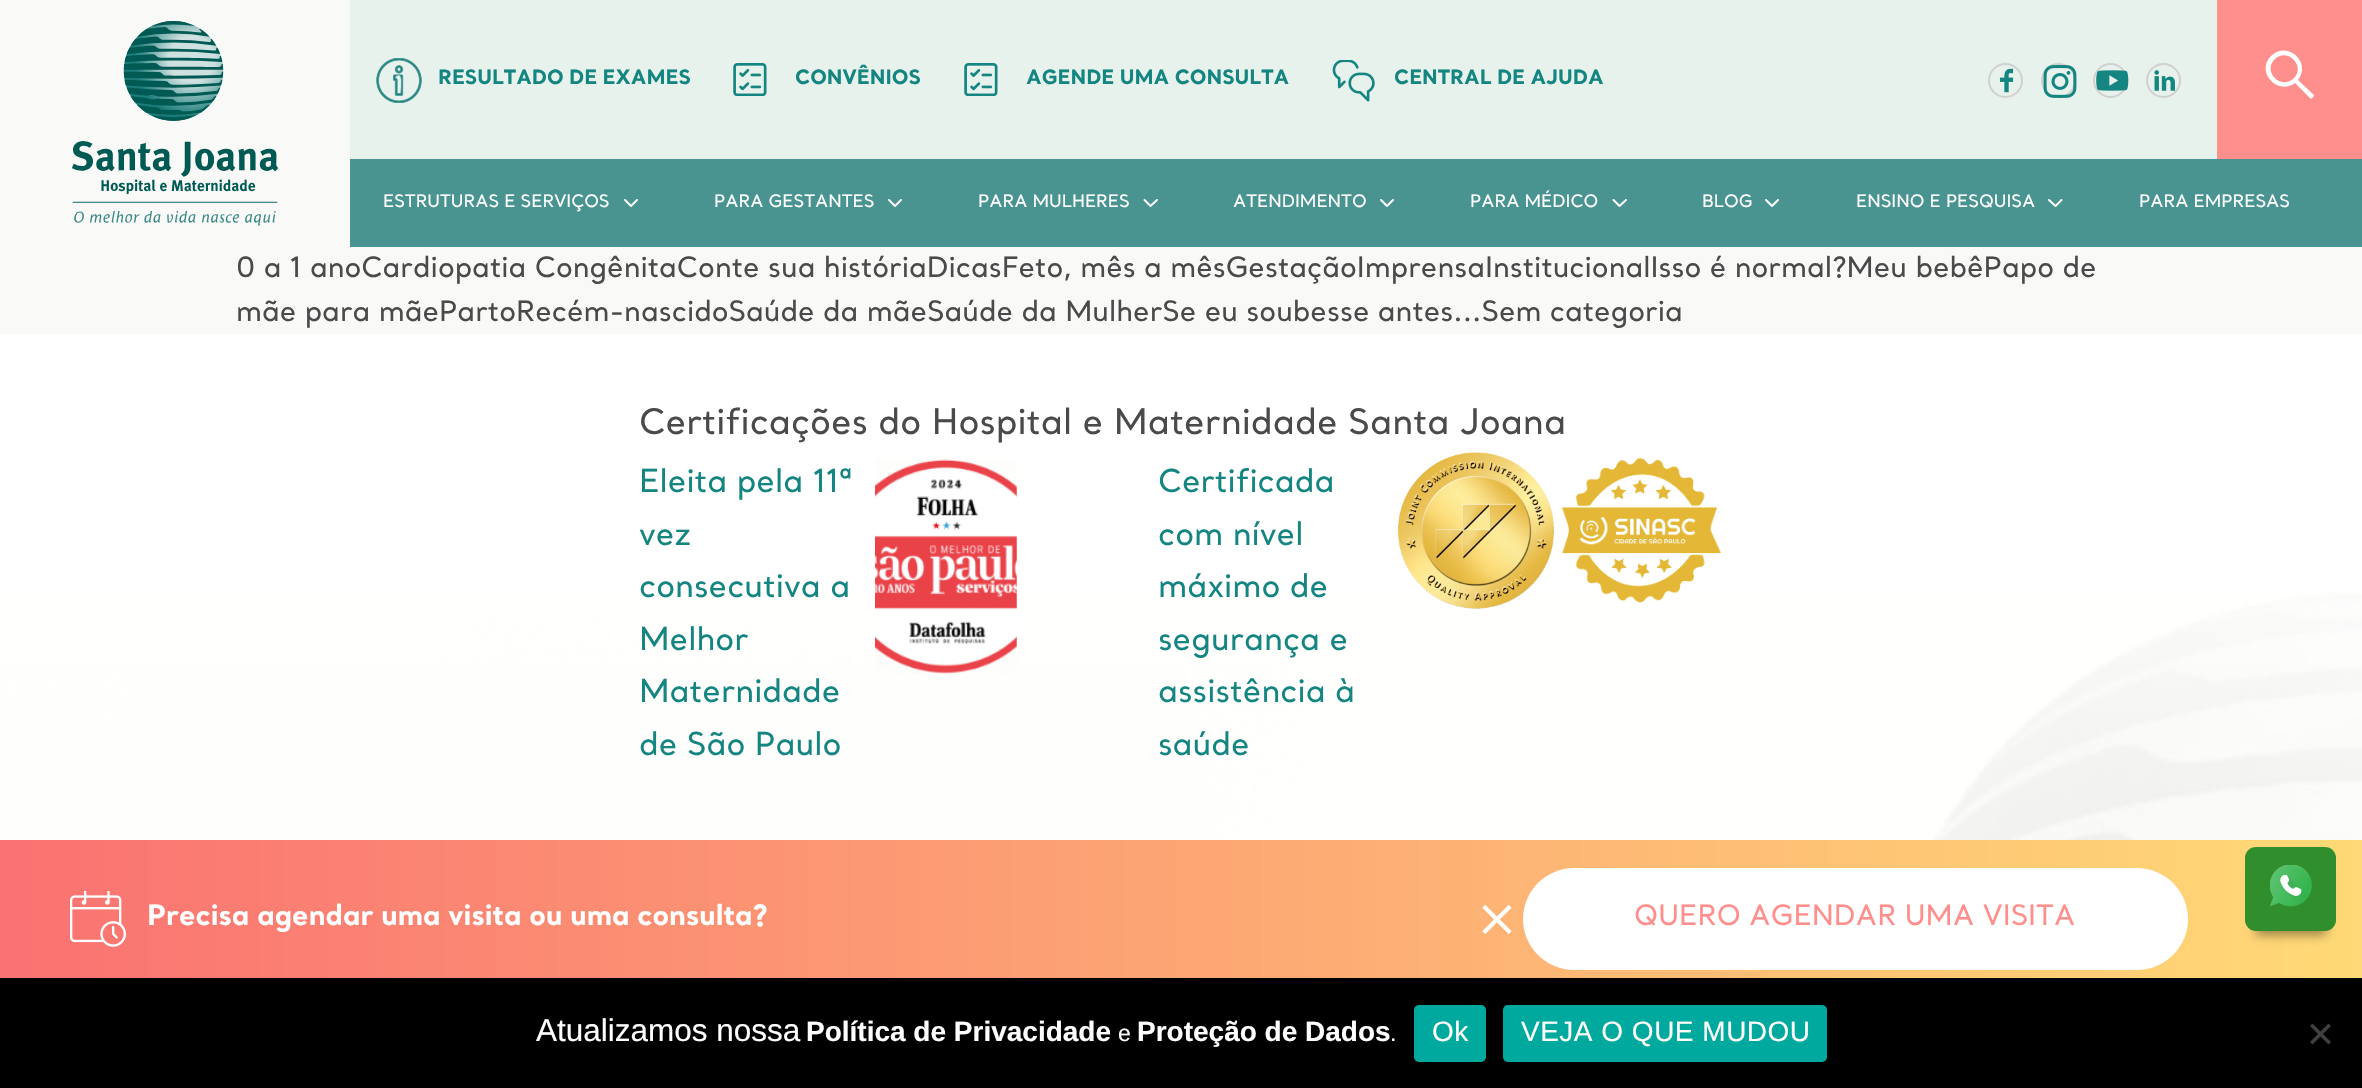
void draw(SkCanvas* canvas) {
    SkPaint paint;
    paint.setAntiAlias(true);
    auto face = [&](const char* family, int weight, float size, bool italic = false) {
        SkFontStyle style(weight, SkFontStyle::kNormal_Width,
            italic ? SkFontStyle::kItalic_Slant : SkFontStyle::kUpright_Slant);
        SkFont result(fontMgr->matchFamilyStyle(family, style), size);
        result.setSubpixel(true);
        return result;
    };
    auto write = [&](const char* s, float x, float y, const SkFont& font, SkColor color) {
        SkPaint ink(SkColor4f::FromColor(color));
        ink.setAntiAlias(true);
        canvas->drawString(s, x, y, font, ink);
    };
    auto writeSpaced = [&](const char* s, float x, float y, const SkFont& font, const SkPaint& ink, float letter, float word) {
        std::vector<SkGlyphID> glyphs(font.countText(s, strlen(s), SkTextEncoding::kUTF8));
        std::vector<float> xs(glyphs.size());
        font.textToGlyphs(s, strlen(s), SkTextEncoding::kUTF8, glyphs);
        font.getXPos(glyphs, xs, x);
        float extra = 0;
        for (size_t i = 0; i < glyphs.size(); i++) {
            xs[i] += extra;
            extra += letter + word * (glyphs[i] == font.unicharToGlyph(' '));
        }
        canvas->drawTextBlob(SkTextBlob::MakeFromPosHGlyphs(glyphs, xs, y, font), 0, 0, ink);
    };
    auto block = [&](float x, float y, float w, float h, SkColor color) {
        SkPaint ink(SkColor4f::FromColor(color));
        ink.setAntiAlias(true);
        canvas->drawRect(SkRect::MakeXYWH(x, y, w, h), ink);
    };
    auto card = [&](float x, float y, float w, float h, float radius, SkColor color) {
        SkPaint ink(SkColor4f::FromColor(color));
        ink.setAntiAlias(true);
        canvas->drawRoundRect(SkRect::MakeXYWH(x, y, w, h), radius, radius, ink);
    };
    auto paste = [&](const char* path, float x, float y, float w, float h) {
        auto image = SkImages::DeferredFromEncodedData(SkData::MakeFromFileName(path));
        canvas->drawImageRect(image, SkRect::MakeXYWH(x, y, w, h), SkSamplingOptions());
    };
    canvas->clear(SkColorSetRGB(249, 249, 247));
    paste("pic1.png", 72, 21, 206, 205);
    block(350, 0, 1867, 159, SkColorSetRGB(232, 242, 237));
    paste("pic2.png", 376, 58, 46, 45);
    auto kFont1 = face("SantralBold", 700, 19.6f);
    write("RESULTADO DE EXAMES", 438, 84, kFont1, SkColorSetRGB(20, 133, 129));
    paste("pic3.png", 733, 63, 34, 33);
    write("CONVÊNIOS", 795, 84, kFont1, SkColorSetRGB(20, 133, 129));
    paste("pic3.png", 964, 63, 34, 33);
    write("AGENDE UMA CONSULTA", 1026, 84, kFont1, SkColorSetRGB(20, 133, 129));
    paste("pic4.png", 1332, 60, 43, 42);
    write("CENTRAL DE AJUDA", 1394, 84, kFont1, SkColorSetRGB(20, 133, 129));
    paint.setStyle(SkPaint::kStroke_Style);
    paint.setStrokeWidth(2);
    paint.setColor(SkColorSetRGB(208, 208, 208));
    canvas->drawCircle(2005.5f, 80.5f, 16.5f, paint);
    paste("pic5.png", 1999, 68, 15, 25);
    canvas->drawCircle(2058.5f, 80.5f, 16.5f, paint);
    paste("pic6.png", 2043, 65, 34, 33);
    canvas->drawCircle(2110.5f, 80.5f, 16.5f, paint);
    paste("pic7.png", 2096, 70, 33, 21);
    canvas->drawCircle(2163.5f, 80.5f, 16.5f, paint);
    paste("pic8.png", 2154, 70, 21, 21);
    block(2217, 0, 145, 159, SkColorSetRGB(255, 143, 140));
    paint.setStyle(SkPaint::kFill_Style);
    paint.setColor(SK_ColorWHITE);
    canvas->drawPath(SkPathBuilder().moveTo(2314, 95).lineTo(2298, 80).cubicTo(2312, 62, 2287, 40, 2271, 56).cubicTo(2255, 72, 2278, 96, 2295, 83).lineTo(2311, 99).cubicTo(2311, 99, 2315, 96, 2314, 95).close().moveTo(2294, 78).cubicTo(2281, 91, 2262, 71, 2275, 59).cubicTo(2287, 47, 2306, 66, 2294, 78).close().detach(), paint);
    block(350, 159, 2012, 88, SkColorSetRGB(73, 148, 144));
    auto kFont2 = face("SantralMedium", 500, 17.1f);
    write("ESTRUTURAS E SERVIÇOS", 383, 207, kFont2, SK_ColorWHITE);
    paint.setStyle(SkPaint::kStroke_Style);
    paint.setStrokeCap(SkPaint::kRound_Cap);
    paint.setStrokeJoin(SkPaint::kRound_Join);
    canvas->drawPath(SkPathBuilder().moveTo(625, 200).lineTo(631, 206).lineTo(637, 200).detach(), paint);
    write("PARA GESTANTES", 714, 207, kFont2, SK_ColorWHITE);
    canvas->drawPath(SkPathBuilder().moveTo(889, 200).lineTo(895, 206).lineTo(901, 200).detach(), paint);
    write("PARA MULHERES", 978, 207, kFont2, SK_ColorWHITE);
    canvas->drawPath(SkPathBuilder().moveTo(1144.5f, 200).lineTo(1150.5f, 206).lineTo(1157, 200).detach(), paint);
    write("ATENDIMENTO", 1233, 207, kFont2, SK_ColorWHITE);
    canvas->drawPath(SkPathBuilder().moveTo(1381, 200).lineTo(1387, 206).lineTo(1393, 200).detach(), paint);
    write("PARA MÉDICO", 1470, 207, kFont2, SK_ColorWHITE);
    canvas->drawPath(SkPathBuilder().moveTo(1613.5f, 200).lineTo(1619.5f, 206).lineTo(1626, 200).detach(), paint);
    write("BLOG", 1702, 207, kFont2, SK_ColorWHITE);
    canvas->drawPath(SkPathBuilder().moveTo(1766, 200).lineTo(1772, 206).lineTo(1778, 200).detach(), paint);
    write("ENSINO E PESQUISA", 1856, 207, kFont2, SK_ColorWHITE);
    canvas->drawPath(SkPathBuilder().moveTo(2049, 200).lineTo(2055.5f, 206).lineTo(2061.5f, 200).detach(), paint);
    write("PARA EMPRESAS", 2139, 207, kFont2, SK_ColorWHITE);
    auto kFont3 = face("SantralMedium", 500, 28);
    write("0 a 1 anoCardiopatia CongênitaConte sua históriaDicasFeto, mês a mêsGestaçãoImprensaInstitucionalIsso é normal?Meu bebêPapo de", 236, 277, kFont3, SkColorSetRGB(74, 74, 74));
    write("mãe para mãePartoRecém-nascidoSaúde da mãeSaúde da MulherSe eu soubesse antes...Sem categoria", 236, 321, kFont3, SkColorSetRGB(74, 74, 74));
    block(0, 334, 2362, 506, SK_ColorWHITE);
    paste("pic9.png", 0, 593, 2362, 247);
    auto kFont4 = face("SantralMedium", 500, 35);
    write("Certificações do Hospital e Maternidade Santa Joana", 639, 434, kFont4, SkColorSetRGB(74, 74, 74));
    auto kFont5 = face("SantralMedium", 500, 31.5f);
    write("Eleita pela 11ª", 639, 492, kFont5, SkColorSetRGB(20, 133, 129));
    write("vez", 639, 545, kFont5, SkColorSetRGB(20, 133, 129));
    write("consecutiva a", 639, 597, kFont5, SkColorSetRGB(20, 133, 129));
    write("Melhor", 639, 650, kFont5, SkColorSetRGB(20, 133, 129));
    write("Maternidade", 639, 702, kFont5, SkColorSetRGB(20, 133, 129));
    write("de São Paulo", 639, 755, kFont5, SkColorSetRGB(20, 133, 129));
    paste("pic10.png", 875, 459, 142, 215);
    write("Certificada", 1158, 492, kFont5, SkColorSetRGB(20, 133, 129));
    write("com nível", 1158, 545, kFont5, SkColorSetRGB(20, 133, 129));
    write("máximo de", 1158, 597, kFont5, SkColorSetRGB(20, 133, 129));
    write("segurança e", 1158, 650, kFont5, SkColorSetRGB(20, 133, 129));
    write("assistência à", 1158, 702, kFont5, SkColorSetRGB(20, 133, 129));
    write("saúde", 1158, 755, kFont5, SkColorSetRGB(20, 133, 129));
    paste("pic11.png", 1397, 452, 157, 157);
    paste("pic12.png", 1561, 457, 161, 146);
    paint.setStyle(SkPaint::kFill_Style);
    {
        const SkColor colors[] = {SkColorSetRGB(250, 114, 114), SkColorSetRGB(255, 218, 118)};
        const float stops[] = {0, 1};
        const SkPoint ends[] = {{0, 919}, {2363, 919}};
        paint.setShader(SkGradientShader::MakeLinear(ends, colors, stops, 2, SkTileMode::kClamp));
        paint.setAlpha(255);
    }
    canvas->drawRect(SkRect::MakeXYWH(0, 840, 2362, 138), paint);
    paint.setShader(nullptr);
    paint.setColor(SkColorSetARGB(102, 0, 0, 0));
    paint.setMaskFilter(SkMaskFilter::MakeBlur(kNormal_SkBlurStyle, 5));
    canvas->drawRect(SkRect::MakeXYWH(2256, 872, 70, 63), paint);
    paint.setMaskFilter(nullptr);
    card(2245, 847, 91, 84, 11, SkColorSetRGB(48, 142, 45));
    paste("pic13.png", 2270, 865, 42, 42);
    paste("pic14.png", 70, 891, 56, 56);
    auto kFont6 = face("SantralBold", 700, 28);
    write("Precisa agendar uma visita ou uma consulta?", 147, 925, kFont6, SK_ColorWHITE);
    paste("pic15.png", 1482, 904, 30, 30);
    card(1523, 868, 665, 102, 51, SK_ColorWHITE);
    write("QUERO AGENDAR UMA VISITA", 1634, 925, kFont3, SkColorSetRGB(255, 143, 140));
    block(0, 978, 2362, 110, SK_ColorBLACK);
    auto kFont7 = face("Liberation Sans", 400, 31.5f);
    write("Atualizamos nossa", 536, 1041, kFont7, SK_ColorWHITE);
    auto kFont8 = face("Liberation Sans", 700, 28);
    write("Política de Privacidade", 806, 1041, kFont8, SK_ColorWHITE);
    auto kFont9 = face("Liberation Sans", 400, 23);
    write("e", 1118, 1041, kFont9, SK_ColorWHITE);
    write("Proteção de Dados", 1137, 1041, kFont8, SK_ColorWHITE);
    write(".", 1390, 1041, kFont9, SK_ColorWHITE);
    card(1414, 1005, 72, 57, 5, SkColorSetRGB(0, 169, 157));
    auto kFont10 = face("Liberation Sans", 400, 28);
    paint.setColor(SK_ColorWHITE);
    writeSpaced("Ok", 1432, 1041, kFont10, paint, 0.5f, 0);
    card(1503, 1005, 324, 57, 5, SkColorSetRGB(0, 169, 157));
    writeSpaced("VEJA O QUE MUDOU", 1521, 1041, kFont10, paint, 0.5f, 0);
    paint.setColor(SkColorSetRGB(64, 64, 64));
    canvas->drawPath(SkPathBuilder().moveTo(2328.5f, 1023.5f).lineTo(2331, 1026).lineTo(2312.5f, 1044.5f).lineTo(2310, 1042).close().detach(), paint);
    canvas->drawPath(SkPathBuilder().moveTo(2310, 1026).lineTo(2312.5f, 1023.5f).lineTo(2331, 1042).lineTo(2328.5f, 1044.5f).close().detach(), paint);
}
